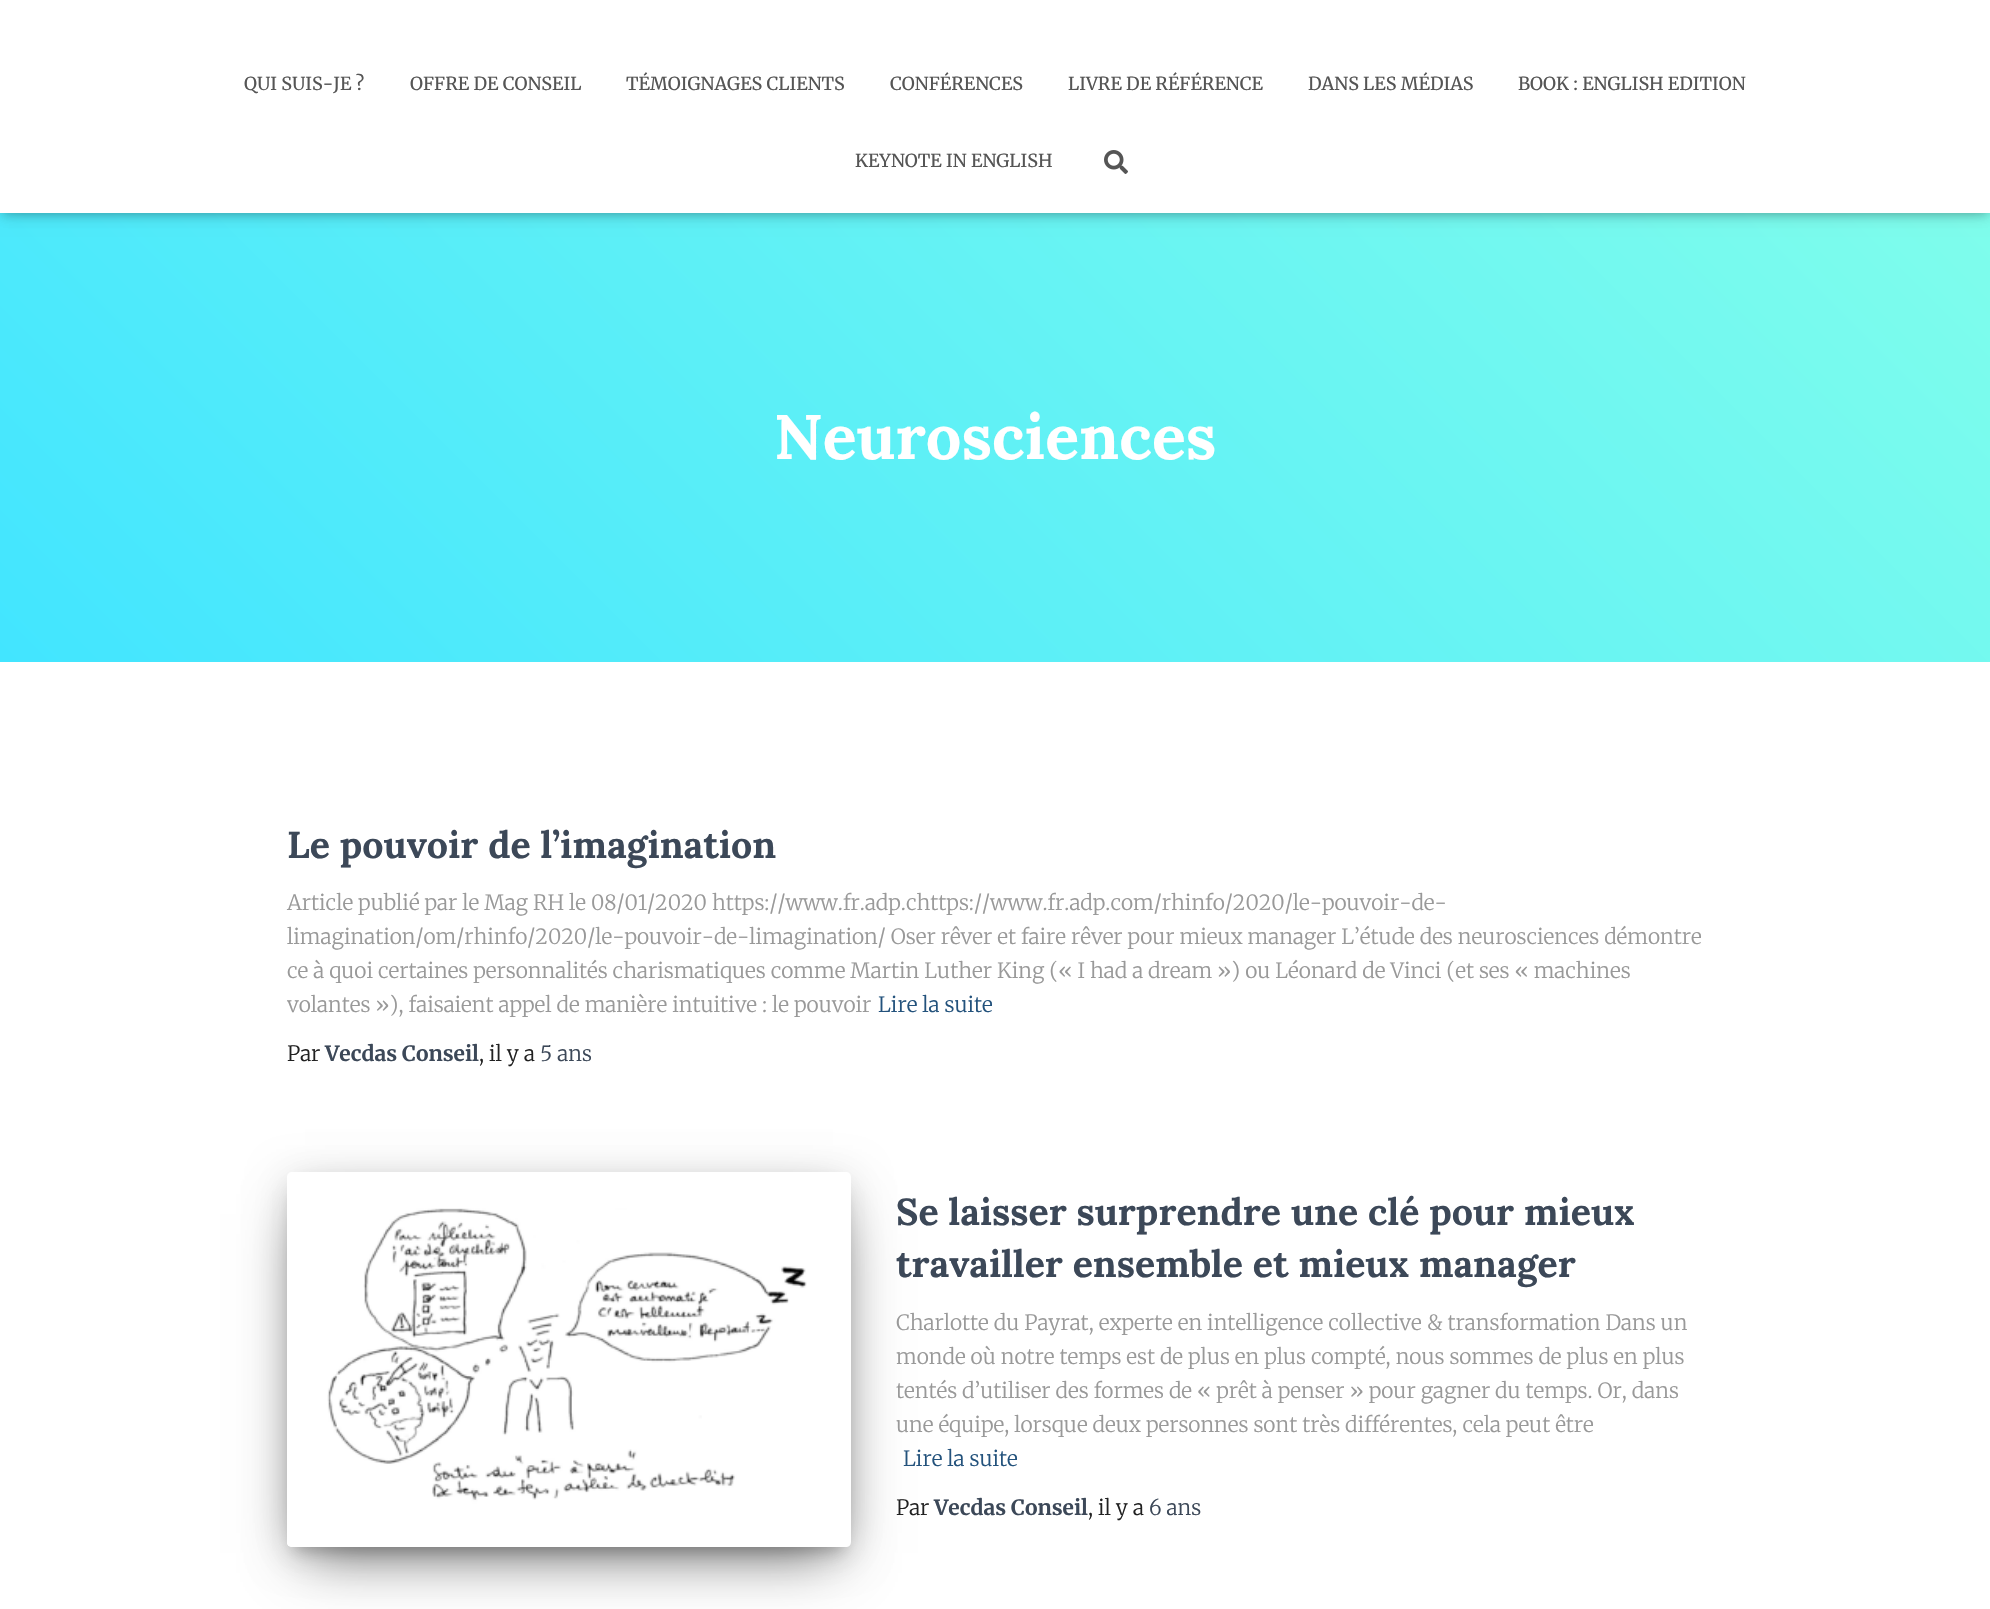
void draw(SkCanvas* canvas) {
    SkPaint paint;
    paint.setAntiAlias(true);
    auto face = [&](const char* family, int weight, float size, bool italic = false) {
        SkFontStyle style(weight, SkFontStyle::kNormal_Width,
            italic ? SkFontStyle::kItalic_Slant : SkFontStyle::kUpright_Slant);
        SkFont result(fontMgr->matchFamilyStyle(family, style), size);
        result.setSubpixel(true);
        return result;
    };
    auto write = [&](const char* s, float x, float y, const SkFont& font, SkColor color) {
        SkPaint ink(SkColor4f::FromColor(color));
        ink.setAntiAlias(true);
        canvas->drawString(s, x, y, font, ink);
    };
    auto block = [&](float x, float y, float w, float h, SkColor color) {
        SkPaint ink(SkColor4f::FromColor(color));
        ink.setAntiAlias(true);
        canvas->drawRect(SkRect::MakeXYWH(x, y, w, h), ink);
    };
    auto paste = [&](const char* path, float x, float y, float w, float h) {
        auto image = SkImages::DeferredFromEncodedData(SkData::MakeFromFileName(path));
        canvas->drawImageRect(image, SkRect::MakeXYWH(x, y, w, h), SkSamplingOptions());
    };
    canvas->clear(SK_ColorWHITE);
    {
        const SkColor colors[] = {SkColorSetRGB(66, 229, 255), SkColorSetRGB(132, 255, 234)};
        const float stops[] = {0, 1};
        const SkPoint ends[] = {{332, 994}, {1658, -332}};
        paint.setShader(SkGradientShader::MakeLinear(ends, colors, stops, 2, SkTileMode::kClamp));
        paint.setAlpha(255);
    }
    canvas->drawRect(SkRect::MakeXYWH(0, 213, 1990, 449), paint);
    paint.setShader(nullptr);
    paint.setColor(SkColorSetARGB(26, 0, 0, 0));
    paint.setMaskFilter(SkMaskFilter::MakeBlur(kNormal_SkBlurStyle, 4));
    canvas->drawRect(SkRect::MakeXYWH(3, 9, 1985, 207), paint);
    paint.setMaskFilter(nullptr);
    paint.setColor(SkColorSetARGB(31, 0, 0, 0));
    paint.setMaskFilter(SkMaskFilter::MakeBlur(kNormal_SkBlurStyle, 7.5f));
    canvas->drawRect(SkRect::MakeXYWH(0, 2, 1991, 213), paint);
    paint.setMaskFilter(nullptr);
    paint.setColor(SkColorSetARGB(107, 0, 0, 0));
    paint.setMaskFilter(SkMaskFilter::MakeBlur(kNormal_SkBlurStyle, 7.5f));
    canvas->drawRect(SkRect::MakeXYWH(9, 11, 1973, 195), paint);
    paint.setMaskFilter(nullptr);
    block(0, 0, 1990, 213, SK_ColorWHITE);
    auto kFont1 = face("Merriweather", 400, 18);
    write("QUI SUIS-JE ?", 244, 90, kFont1, SkColorSetRGB(85, 85, 85));
    write("OFFRE DE CONSEIL", 410, 90, kFont1, SkColorSetRGB(85, 85, 85));
    write("TÉMOIGNAGES CLIENTS", 626, 90, kFont1, SkColorSetRGB(85, 85, 85));
    write("CONFÉRENCES", 890, 90, kFont1, SkColorSetRGB(85, 85, 85));
    write("LIVRE DE RÉFÉRENCE", 1068, 90, kFont1, SkColorSetRGB(85, 85, 85));
    write("DANS LES MÉDIAS", 1308, 90, kFont1, SkColorSetRGB(85, 85, 85));
    write("BOOK : ENGLISH EDITION", 1518, 90, kFont1, SkColorSetRGB(85, 85, 85));
    write("KEYNOTE IN ENGLISH", 855, 167, kFont1, SkColorSetRGB(85, 85, 85));
    paste("pic1.png", 1104, 150, 24, 24);
    auto kFont2 = face("Lora", 700, 63);
    write("Neurosciences", 774, 459, kFont2, SK_ColorWHITE);
    auto kFont3 = face("Lora", 700, 37.5f);
    write("Le pouvoir de l’imagination", 287, 858, kFont3, SkColorSetRGB(60, 72, 88));
    auto kFont4 = face("Merriweather", 300, 21);
    write("Article publié par le Mag RH le 08/01/2020 https://www.fr.adp.chttps://www.fr.adp.com/rhinfo/2020/le-pouvoir-de-", 287, 910, kFont4, SkColorSetRGB(153, 153, 153));
    write("limagination/om/rhinfo/2020/le-pouvoir-de-limagination/ Oser rêver et faire rêver pour mieux manager L’étude des neurosciences démontre", 287, 944, kFont4, SkColorSetRGB(153, 153, 153));
    write("ce à quoi certaines personnalités charismatiques comme Martin Luther King (« I had a dream ») ou Léonard de Vinci (et ses « machines", 287, 978, kFont4, SkColorSetRGB(153, 153, 153));
    write("volantes »), faisaient appel de manière intuitive : le pouvoir", 287, 1012, kFont4, SkColorSetRGB(153, 153, 153));
    write("Lire la suite", 878, 1012, kFont4, SkColorSetRGB(35, 82, 124));
    write("Par", 287, 1061, kFont4, SkColorSetRGB(33, 33, 33));
    auto kFont5 = face("Merriweather", 700, 21);
    write("Vecdas Conseil", 325, 1061, kFont5, SkColorSetRGB(60, 72, 88));
    write(", il y a", 479, 1061, kFont4, SkColorSetRGB(33, 33, 33));
    write("5 ans", 540, 1061, kFont4, SkColorSetRGB(60, 72, 88));
    canvas->save();
    canvas->clipPath(SkPathBuilder(SkPathFillType::kEvenOdd).moveTo(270, 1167).lineTo(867, 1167).lineTo(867, 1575).lineTo(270, 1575).close().moveTo(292, 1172).lineTo(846, 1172).cubicTo(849, 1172, 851, 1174, 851, 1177).lineTo(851, 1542).cubicTo(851, 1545, 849, 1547, 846, 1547).lineTo(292, 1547).cubicTo(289, 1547, 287, 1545, 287, 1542).lineTo(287, 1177).cubicTo(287, 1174, 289, 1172, 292, 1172).close().detach(), true);
    paint.setColor(SkColorSetARGB(51, 0, 0, 0));
    paint.setMaskFilter(SkMaskFilter::MakeBlur(kNormal_SkBlurStyle, 7.5f));
    canvas->drawRect(SkRect::MakeXYWH(294, 1191, 549, 360), paint);
    paint.setMaskFilter(nullptr);
    canvas->restore();
    canvas->save();
    canvas->clipPath(SkPathBuilder(SkPathFillType::kEvenOdd).moveTo(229, 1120).lineTo(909, 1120).lineTo(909, 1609).lineTo(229, 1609).close().moveTo(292, 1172).lineTo(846, 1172).cubicTo(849, 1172, 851, 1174, 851, 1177).lineTo(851, 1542).cubicTo(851, 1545, 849, 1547, 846, 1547).lineTo(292, 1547).cubicTo(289, 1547, 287, 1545, 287, 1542).lineTo(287, 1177).cubicTo(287, 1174, 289, 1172, 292, 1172).close().detach(), true);
    paint.setColor(SkColorSetARGB(31, 0, 0, 0));
    paint.setMaskFilter(SkMaskFilter::MakeBlur(kNormal_SkBlurStyle, 19));
    canvas->drawRoundRect(SkRect::MakeXYWH(287, 1178, 564, 375), 5, 5, paint);
    paint.setMaskFilter(nullptr);
    canvas->restore();
    canvas->save();
    canvas->clipPath(SkPathBuilder(SkPathFillType::kEvenOdd).moveTo(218, 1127).lineTo(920, 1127).lineTo(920, 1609).lineTo(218, 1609).close().moveTo(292, 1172).lineTo(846, 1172).cubicTo(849, 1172, 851, 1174, 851, 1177).lineTo(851, 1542).cubicTo(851, 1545, 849, 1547, 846, 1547).lineTo(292, 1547).cubicTo(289, 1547, 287, 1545, 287, 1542).lineTo(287, 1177).cubicTo(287, 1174, 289, 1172, 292, 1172).close().detach(), true);
    paint.setColor(SkColorSetARGB(143, 0, 0, 0));
    paint.setMaskFilter(SkMaskFilter::MakeBlur(kNormal_SkBlurStyle, 28.5f));
    canvas->drawRect(SkRect::MakeXYWH(305, 1214, 528, 339), paint);
    paint.setMaskFilter(nullptr);
    canvas->restore();
    paste("pic2.png", 287, 1208, 563, 339);
    write("Se laisser surprendre une clé pour mieux", 896, 1225, kFont3, SkColorSetRGB(60, 72, 88));
    write("travailler ensemble et mieux manager", 896, 1277, kFont3, SkColorSetRGB(60, 72, 88));
    write("Charlotte du Payrat, experte en intelligence collective & transformation Dans un", 896, 1330, kFont4, SkColorSetRGB(153, 153, 153));
    write("monde où notre temps est de plus en plus compté, nous sommes de plus en plus", 896, 1364, kFont4, SkColorSetRGB(153, 153, 153));
    write("tentés d’utiliser des formes de « prêt à penser » pour gagner du temps. Or, dans", 896, 1398, kFont4, SkColorSetRGB(153, 153, 153));
    write("une équipe, lorsque deux personnes sont très différentes, cela peut être", 896, 1432, kFont4, SkColorSetRGB(153, 153, 153));
    write("Lire la suite", 903, 1466, kFont4, SkColorSetRGB(35, 82, 124));
    write("Par", 896, 1515, kFont4, SkColorSetRGB(33, 33, 33));
    write("Vecdas Conseil", 934, 1515, kFont5, SkColorSetRGB(60, 72, 88));
    write(", il y a", 1088, 1515, kFont4, SkColorSetRGB(33, 33, 33));
    write("6 ans", 1149, 1515, kFont4, SkColorSetRGB(60, 72, 88));
}
